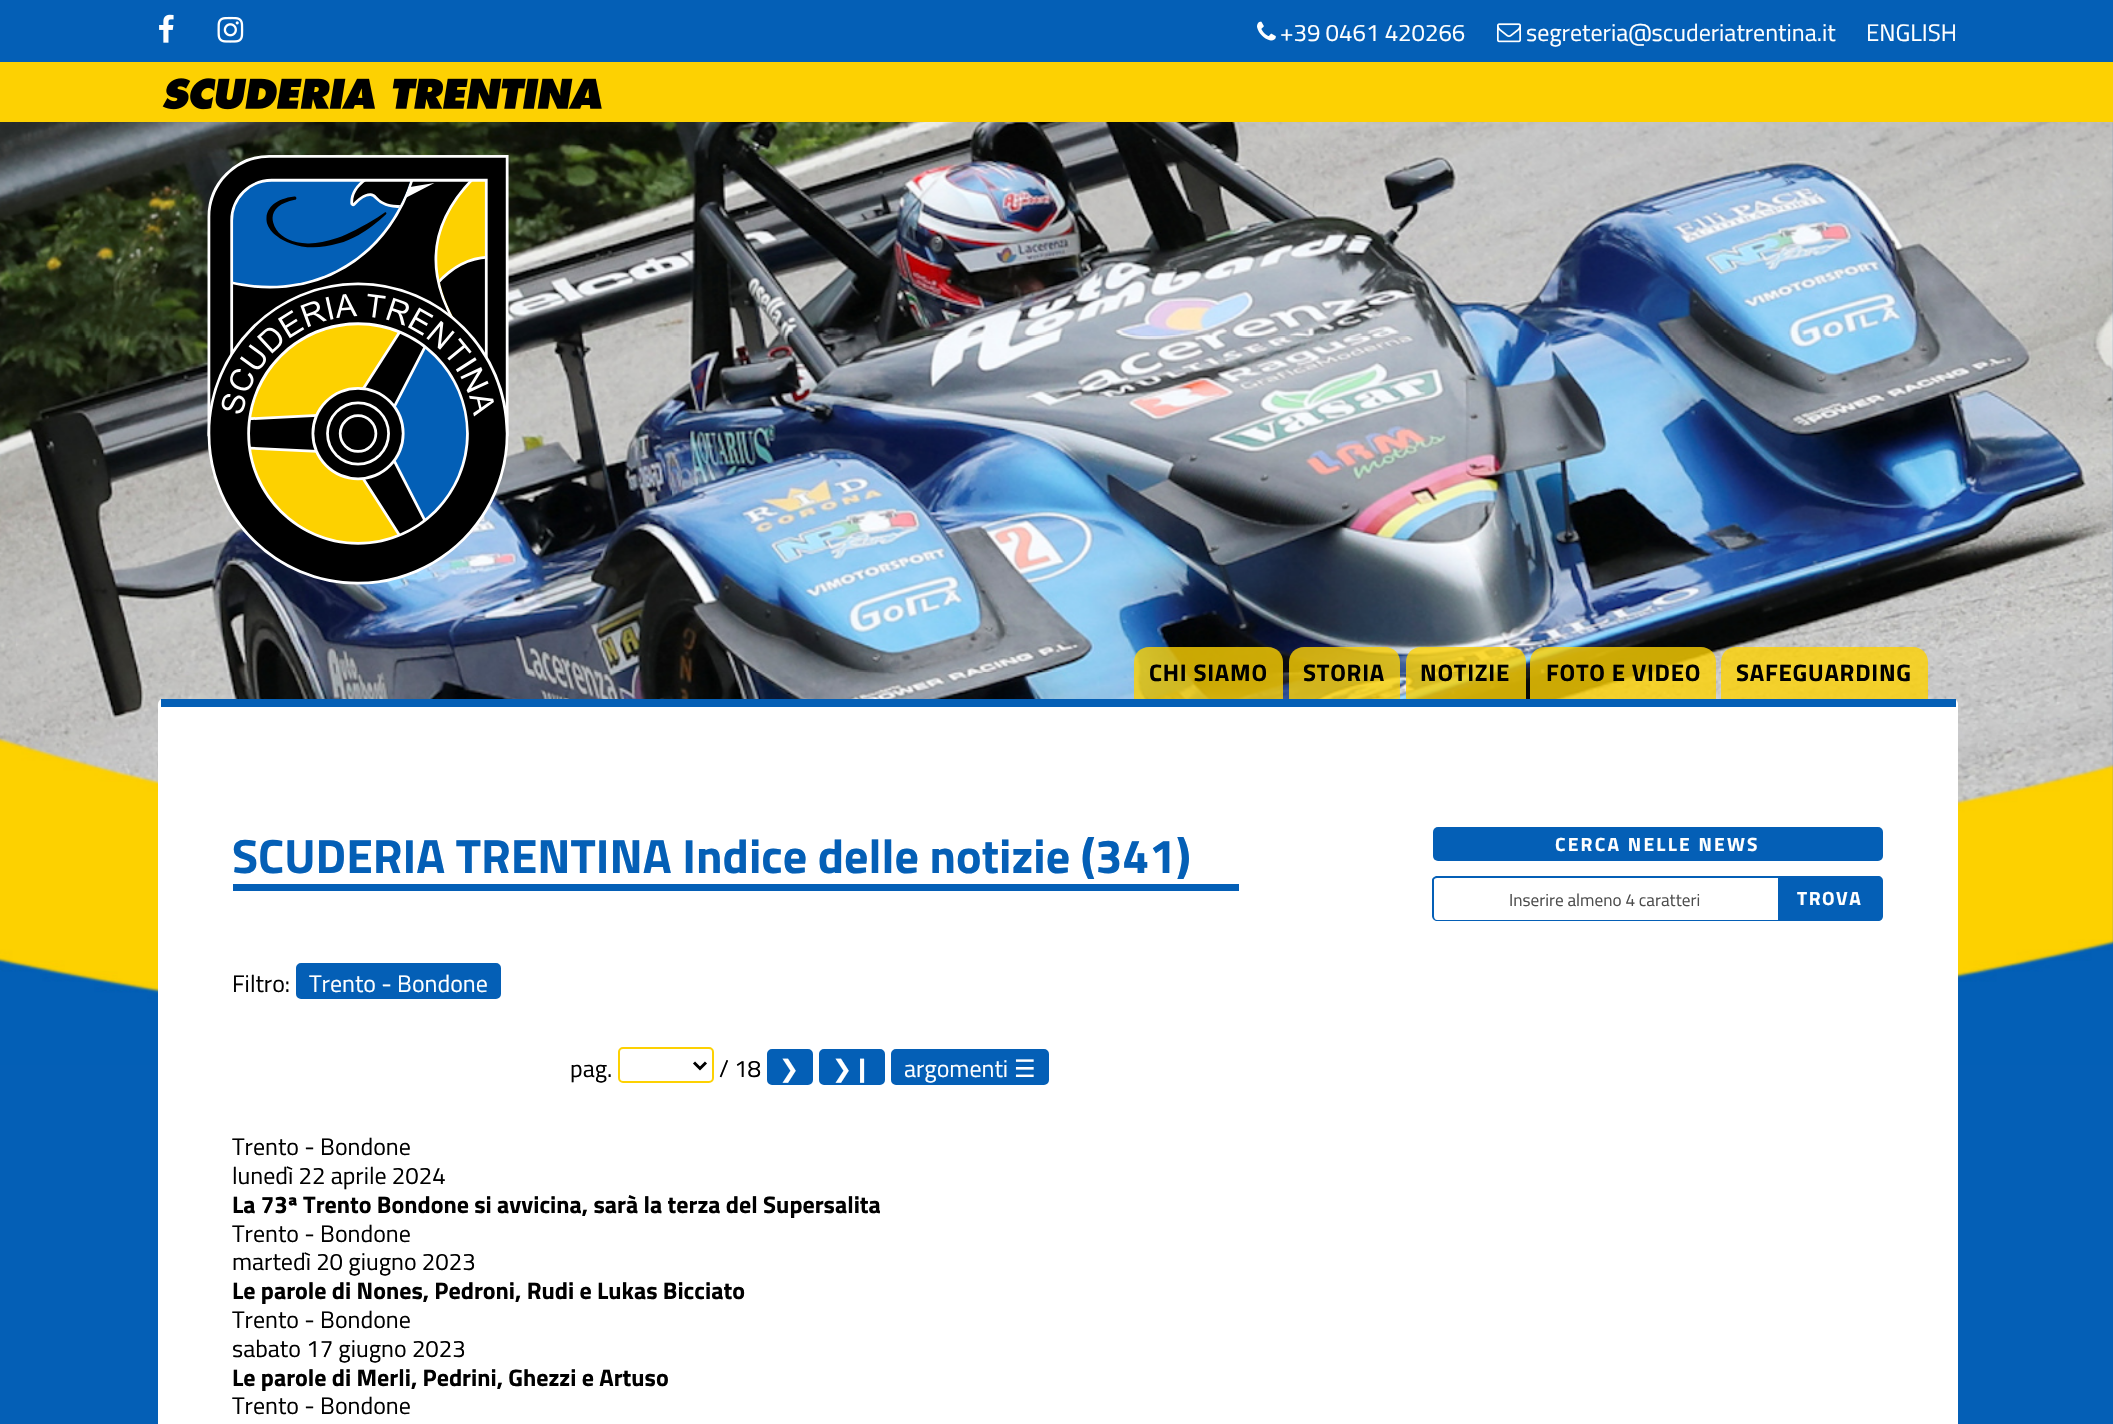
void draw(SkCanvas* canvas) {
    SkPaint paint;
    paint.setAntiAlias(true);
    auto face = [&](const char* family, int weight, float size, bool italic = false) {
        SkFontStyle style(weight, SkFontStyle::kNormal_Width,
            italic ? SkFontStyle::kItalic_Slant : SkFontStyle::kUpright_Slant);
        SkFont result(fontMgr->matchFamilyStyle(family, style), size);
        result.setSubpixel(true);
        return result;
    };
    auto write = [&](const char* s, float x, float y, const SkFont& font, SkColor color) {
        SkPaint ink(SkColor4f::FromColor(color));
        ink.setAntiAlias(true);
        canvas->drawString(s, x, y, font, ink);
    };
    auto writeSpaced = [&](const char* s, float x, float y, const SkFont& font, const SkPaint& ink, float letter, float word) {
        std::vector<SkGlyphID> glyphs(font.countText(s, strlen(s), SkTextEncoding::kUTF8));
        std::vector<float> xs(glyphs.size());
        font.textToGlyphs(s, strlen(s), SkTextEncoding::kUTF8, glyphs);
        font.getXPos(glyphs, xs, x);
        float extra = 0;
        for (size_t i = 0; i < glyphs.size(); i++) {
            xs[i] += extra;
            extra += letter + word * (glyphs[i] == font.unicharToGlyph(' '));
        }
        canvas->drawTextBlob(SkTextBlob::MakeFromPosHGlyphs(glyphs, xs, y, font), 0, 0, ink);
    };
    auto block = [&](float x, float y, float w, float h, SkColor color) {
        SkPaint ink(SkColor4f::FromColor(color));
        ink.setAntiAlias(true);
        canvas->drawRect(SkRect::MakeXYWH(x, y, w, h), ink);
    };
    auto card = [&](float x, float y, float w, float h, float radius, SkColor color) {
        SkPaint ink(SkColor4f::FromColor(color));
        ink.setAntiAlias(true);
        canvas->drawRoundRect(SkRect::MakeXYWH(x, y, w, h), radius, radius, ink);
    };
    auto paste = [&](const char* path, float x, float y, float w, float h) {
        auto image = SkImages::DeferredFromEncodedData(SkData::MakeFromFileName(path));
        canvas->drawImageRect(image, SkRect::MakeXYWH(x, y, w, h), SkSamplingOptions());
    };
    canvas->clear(SkColorSetRGB(4, 95, 182));
    paste("pic1.png", 0, 122, 2113, 943);
    paste("pic2.png", 159, 14, 15, 29);
    paste("pic3.png", 217, 16, 27, 27);
    paste("pic4.png", 1257, 21, 19, 20);
    auto kFont1 = face("Titillium Web", 400, 24);
    write("+39 0461 420266", 1280, 41, kFont1, SK_ColorWHITE);
    paste("pic5.png", 1497, 23, 24, 20);
    write("segreteria@scuderiatrentina.it", 1526, 41, kFont1, SK_ColorWHITE);
    write("ENGLISH", 1866, 41, kFont1, SK_ColorWHITE);
    block(0, 62, 2113, 60, SkColorSetRGB(253, 209, 2));
    paste("pic6.png", 162, 78, 440, 32);
    paste("pic7.png", 207, 155, 302, 430);
    paint.setColor(SkColorSetARGB(204, 253, 209, 2));
    canvas->drawPath(SkPathBuilder().moveTo(1149, 647).lineTo(1268, 647).cubicTo(1276.5f, 647, 1283, 653.5f, 1283, 662).lineTo(1283, 699).lineTo(1134, 699).lineTo(1134, 662).cubicTo(1134, 653.5f, 1140.5f, 647, 1149, 647).close().detach(), paint);
    auto kFont2 = face("Titillium Web", 700, 24);
    paint.setColor(SK_ColorBLACK);
    writeSpaced("CHI SIAMO", 1149, 681, kFont2, paint, 0.75f, 0);
    paint.setColor(SkColorSetARGB(204, 253, 209, 2));
    canvas->drawPath(SkPathBuilder().moveTo(1304, 647).lineTo(1385, 647).cubicTo(1393.5f, 647, 1400, 653.5f, 1400, 662).lineTo(1400, 699).lineTo(1289, 699).lineTo(1289, 662).cubicTo(1289, 653.5f, 1295.5f, 647, 1304, 647).close().detach(), paint);
    paint.setColor(SK_ColorBLACK);
    writeSpaced("STORIA", 1303, 681, kFont2, paint, 0.75f, 0);
    paint.setColor(SkColorSetARGB(204, 253, 209, 2));
    canvas->drawPath(SkPathBuilder().moveTo(1421, 647).lineTo(1511, 647).cubicTo(1519.5f, 647, 1526, 653.5f, 1526, 662).lineTo(1526, 699).lineTo(1406, 699).lineTo(1406, 662).cubicTo(1406, 653.5f, 1412.5f, 647, 1421, 647).close().detach(), paint);
    paint.setColor(SK_ColorBLACK);
    writeSpaced("NOTIZIE", 1420, 681, kFont2, paint, 0.75f, 0);
    paint.setColor(SkColorSetARGB(204, 253, 209, 2));
    canvas->drawPath(SkPathBuilder().moveTo(1545, 647).lineTo(1701, 647).cubicTo(1709.5f, 647, 1716, 653.5f, 1716, 662).lineTo(1716, 699).lineTo(1530, 699).lineTo(1530, 662).cubicTo(1530, 653.5f, 1536.5f, 647, 1545, 647).close().detach(), paint);
    paint.setColor(SK_ColorBLACK);
    writeSpaced("FOTO E VIDEO", 1546, 681, kFont2, paint, 0.75f, 0);
    paint.setColor(SkColorSetARGB(204, 253, 209, 2));
    canvas->drawPath(SkPathBuilder().moveTo(1736, 647).lineTo(1913, 647).cubicTo(1921.5f, 647, 1928, 653.5f, 1928, 662).lineTo(1928, 699).lineTo(1721, 699).lineTo(1721, 662).cubicTo(1721, 653.5f, 1727.5f, 647, 1736, 647).close().detach(), paint);
    paint.setColor(SK_ColorBLACK);
    writeSpaced("SAFEGUARDING", 1736, 681, kFont2, paint, 0.75f, 0);
    card(158, 699, 1800, 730, 5, SK_ColorWHITE);
    block(161, 699, 1795, 8, SkColorSetRGB(4, 95, 182));
    auto kFont3 = face("Titillium Web", 700, 48);
    write("SCUDERIA TRENTINA Indice delle notizie (341)", 232, 873, kFont3, SkColorSetRGB(4, 95, 182));
    block(233, 884, 1006, 7, SkColorSetRGB(4, 95, 182));
    write("Filtro:", 232, 992, kFont1, SK_ColorBLACK);
    paint.setColor(SkColorSetRGB(4, 95, 182));
    canvas->drawRoundRect(SkRect::MakeXYWH(297, 964, 203, 34), 4, 4, paint);
    paint.setStyle(SkPaint::kStroke_Style);
    paint.setStrokeWidth(2);
    canvas->drawRoundRect(SkRect::MakeXYWH(297, 964, 203, 34), 4, 4, paint);
    write("Trento - Bondone", 309, 992, kFont1, SK_ColorWHITE);
    write("pag.", 570, 1077, kFont1, SK_ColorBLACK);
    paint.setColor(SkColorSetRGB(253, 209, 2));
    canvas->drawRoundRect(SkRect::MakeXYWH(619, 1048, 94, 34), 4, 4, paint);
    paint.setStrokeWidth(3);
    paint.setColor(SK_ColorBLACK);
    canvas->drawPath(SkPathBuilder().moveTo(694, 1062.5f).lineTo(700, 1068.5f).lineTo(706, 1062.5f).detach(), paint);
    write("/ 18", 719, 1077, kFont1, SK_ColorBLACK);
    paint.setStyle(SkPaint::kFill_Style);
    paint.setColor(SkColorSetRGB(4, 95, 182));
    canvas->drawRoundRect(SkRect::MakeXYWH(768, 1050, 44, 34), 4, 4, paint);
    paint.setStyle(SkPaint::kStroke_Style);
    paint.setStrokeWidth(2);
    canvas->drawRoundRect(SkRect::MakeXYWH(768, 1050, 44, 34), 4, 4, paint);
    auto kFont4 = face("DejaVu Sans", 400, 24);
    write("❯", 779, 1077, kFont4, SK_ColorWHITE);
    paint.setStyle(SkPaint::kFill_Style);
    canvas->drawRoundRect(SkRect::MakeXYWH(820, 1050, 64, 34), 4, 4, paint);
    paint.setStyle(SkPaint::kStroke_Style);
    canvas->drawRoundRect(SkRect::MakeXYWH(820, 1050, 64, 34), 4, 4, paint);
    write("❯❙", 832, 1077, kFont4, SK_ColorWHITE);
    paint.setStyle(SkPaint::kFill_Style);
    canvas->drawRoundRect(SkRect::MakeXYWH(892, 1050, 156, 34), 4, 4, paint);
    paint.setStyle(SkPaint::kStroke_Style);
    canvas->drawRoundRect(SkRect::MakeXYWH(892, 1050, 156, 34), 4, 4, paint);
    write("argomenti", 904, 1077, kFont1, SK_ColorWHITE);
    write("☰", 1014, 1077, kFont4, SK_ColorWHITE);
    write("Trento - Bondone", 232, 1155, kFont1, SK_ColorBLACK);
    write("lunedì 22 aprile 2024", 232, 1184, kFont1, SK_ColorBLACK);
    write("La 73ª Trento Bondone si avvicina, sarà la terza del Supersalita", 232, 1213, kFont2, SK_ColorBLACK);
    write("Trento - Bondone", 232, 1242, kFont1, SK_ColorBLACK);
    write("martedì 20 giugno 2023", 232, 1270, kFont1, SK_ColorBLACK);
    write("Le parole di Nones, Pedroni, Rudi e Lukas Bicciato", 232, 1299, kFont2, SK_ColorBLACK);
    write("Trento - Bondone", 232, 1328, kFont1, SK_ColorBLACK);
    write("sabato 17 giugno 2023", 232, 1357, kFont1, SK_ColorBLACK);
    write("Le parole di Merli, Pedrini, Ghezzi e Artuso", 232, 1386, kFont2, SK_ColorBLACK);
    write("Trento - Bondone", 232, 1414, kFont1, SK_ColorBLACK);
    card(1433, 827, 450, 34, 5, SkColorSetRGB(4, 95, 182));
    auto kFont5 = face("Titillium Web", 700, 19.25f);
    paint.setStyle(SkPaint::kFill_Style);
    paint.setColor(SK_ColorWHITE);
    writeSpaced("CERCA NELLE NEWS", 1555, 851, kFont5, paint, 2.25f, 0);
    paint.setColor(SkColorSetRGB(4, 95, 182));
    canvas->drawPath(SkPathBuilder(SkPathFillType::kEvenOdd).moveTo(1437, 876).lineTo(1778, 876).lineTo(1778, 921).lineTo(1437, 921).cubicTo(1435, 921, 1432, 919, 1432, 916).lineTo(1432, 880).cubicTo(1432, 878, 1435, 876, 1437, 876).close().moveTo(1437, 878).lineTo(1778, 878).lineTo(1778, 920).lineTo(1437, 920).cubicTo(1435, 920, 1434, 918, 1434, 916).lineTo(1434, 880).cubicTo(1434, 879, 1435, 878, 1437, 878).close().detach(), paint);
    auto kFont6 = face("Titillium Web", 400, 17.25f);
    write("Inserire almeno 4 caratteri", 1509, 906, kFont6, SkColorSetRGB(77, 77, 77));
    canvas->drawPath(SkPathBuilder().moveTo(1778, 876).lineTo(1878, 876).cubicTo(1881, 876, 1883, 878, 1883, 881).lineTo(1883, 916).cubicTo(1883, 919, 1881, 921, 1878, 921).lineTo(1778, 921).close().detach(), paint);
    paint.setColor(SK_ColorWHITE);
    writeSpaced("TROVA", 1797, 905, kFont5, paint, 1.5f, 0);
}
